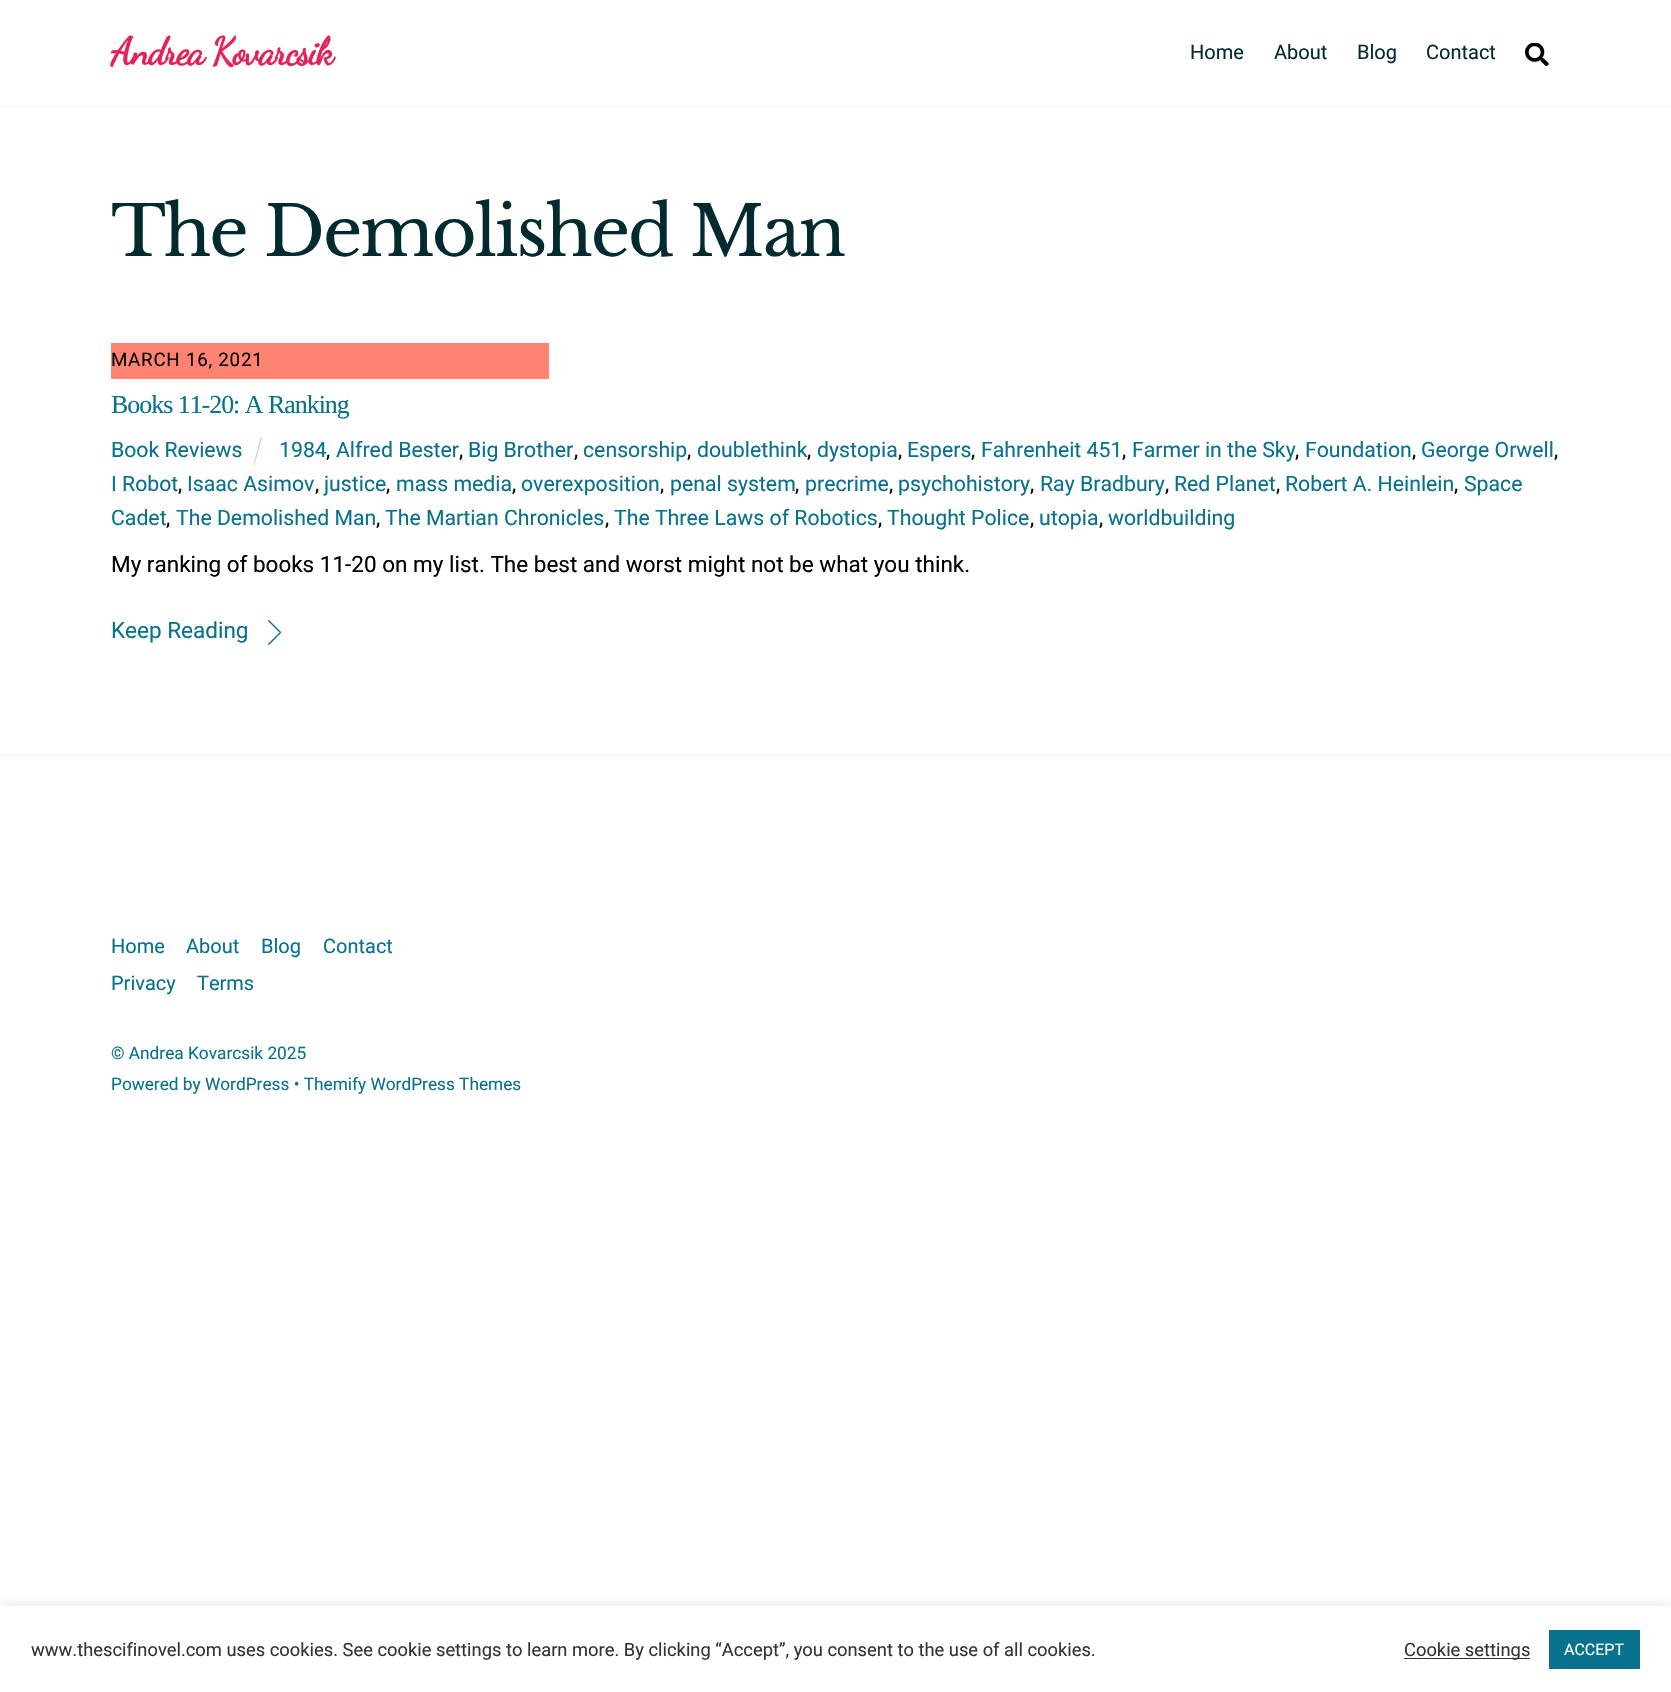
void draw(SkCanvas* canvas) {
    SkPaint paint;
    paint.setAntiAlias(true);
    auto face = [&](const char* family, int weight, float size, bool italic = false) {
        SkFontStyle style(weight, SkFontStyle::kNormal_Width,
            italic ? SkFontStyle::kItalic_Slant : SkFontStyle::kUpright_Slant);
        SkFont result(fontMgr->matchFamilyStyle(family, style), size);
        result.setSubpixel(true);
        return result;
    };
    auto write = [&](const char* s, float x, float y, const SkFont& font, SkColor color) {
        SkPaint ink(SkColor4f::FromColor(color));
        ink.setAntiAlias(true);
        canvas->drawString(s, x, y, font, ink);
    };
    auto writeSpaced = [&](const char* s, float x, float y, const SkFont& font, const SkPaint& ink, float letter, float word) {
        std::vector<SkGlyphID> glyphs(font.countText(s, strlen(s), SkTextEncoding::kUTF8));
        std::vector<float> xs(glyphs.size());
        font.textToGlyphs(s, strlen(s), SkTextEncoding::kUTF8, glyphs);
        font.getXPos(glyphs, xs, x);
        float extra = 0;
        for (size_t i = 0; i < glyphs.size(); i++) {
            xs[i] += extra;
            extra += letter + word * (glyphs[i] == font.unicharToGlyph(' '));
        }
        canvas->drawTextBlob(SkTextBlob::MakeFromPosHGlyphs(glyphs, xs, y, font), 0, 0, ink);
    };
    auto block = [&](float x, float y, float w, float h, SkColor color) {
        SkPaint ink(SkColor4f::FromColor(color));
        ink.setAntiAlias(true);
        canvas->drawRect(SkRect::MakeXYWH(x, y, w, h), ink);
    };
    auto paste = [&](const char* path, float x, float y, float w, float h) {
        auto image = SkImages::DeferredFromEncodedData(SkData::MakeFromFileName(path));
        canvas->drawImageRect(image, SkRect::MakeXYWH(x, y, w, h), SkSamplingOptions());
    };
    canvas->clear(SK_ColorWHITE);
    block(0, 106, 1671, 1, SkColorSetRGB(242, 242, 242));
    auto kFont1 = face("Dancing Script", 700, 38.25f);
    paint.setColor(SkColorSetRGB(228, 34, 86));
    writeSpaced("Andrea Kovarcsik", 111, 64, kFont1, paint, -1.5f, 0);
    auto kFont2 = face("Roboto", 400, 20);
    write("Home", 1190, 59, kFont2, SkColorSetRGB(3, 43, 47));
    write("About", 1274, 59, kFont2, SkColorSetRGB(3, 43, 47));
    write("Blog", 1357, 59, kFont2, SkColorSetRGB(3, 43, 47));
    write("Contact", 1426, 59, kFont2, SkColorSetRGB(3, 43, 47));
    paste("pic1.png", 1525, 43, 24, 23);
    auto kFont3 = face("Libre Baskerville", 400, 68.75f);
    paint.setColor(SkColorSetRGB(3, 43, 47));
    writeSpaced("The Demolished Man", 111, 256, kFont3, paint, -2.1f, 0);
    block(111, 343, 438, 36, SkColorSetRGB(255, 131, 112));
    auto kFont4 = face("Roboto", 400, 18.75f);
    paint.setColor(SK_ColorBLACK);
    writeSpaced("MARCH 16, 2021", 111, 366, kFont4, paint, 0.75f, 0);
    auto kFont5 = face("Liberation Serif", 400, 25.9f);
    paint.setColor(SkColorSetRGB(8, 113, 140));
    writeSpaced("Books 11-20: A Ranking", 111, 413, kFont5, paint, -1, 0);
    paint.setColor(SkColorSetRGB(211, 211, 211));
    canvas->drawPath(SkPathBuilder().moveTo(260.5f, 437.5f).lineTo(262, 437.5f).lineTo(254.5f, 465).lineTo(253.5f, 465).close().detach(), paint);
    auto kFont6 = face("Roboto", 400, 21.25f);
    write("1984", 279, 457, kFont6, SkColorSetRGB(8, 113, 140));
    write(",", 326, 457, kFont6, SK_ColorBLACK);
    write("Alfred Bester", 336, 457, kFont6, SkColorSetRGB(8, 113, 140));
    write(",", 459, 457, kFont6, SK_ColorBLACK);
    write("Big Brother", 468, 457, kFont6, SkColorSetRGB(8, 113, 140));
    write(",", 574, 457, kFont6, SK_ColorBLACK);
    write("censorship", 583, 457, kFont6, SkColorSetRGB(8, 113, 140));
    write(",", 687, 457, kFont6, SK_ColorBLACK);
    write("doublethink", 697, 457, kFont6, SkColorSetRGB(8, 113, 140));
    write(",", 807, 457, kFont6, SK_ColorBLACK);
    write("dystopia", 817, 457, kFont6, SkColorSetRGB(8, 113, 140));
    write(",", 898, 457, kFont6, SK_ColorBLACK);
    write("Espers", 907, 457, kFont6, SkColorSetRGB(8, 113, 140));
    write(",", 971, 457, kFont6, SK_ColorBLACK);
    write("Fahrenheit 451", 981, 457, kFont6, SkColorSetRGB(8, 113, 140));
    write(",", 1122, 457, kFont6, SK_ColorBLACK);
    write("Farmer in the Sky", 1132, 457, kFont6, SkColorSetRGB(8, 113, 140));
    write(",", 1295, 457, kFont6, SK_ColorBLACK);
    write("Foundation", 1305, 457, kFont6, SkColorSetRGB(8, 113, 140));
    write(",", 1412, 457, kFont6, SK_ColorBLACK);
    write("George Orwell", 1421, 457, kFont6, SkColorSetRGB(8, 113, 140));
    write(",", 1554, 457, kFont6, SK_ColorBLACK);
    write("I Robot", 111, 491, kFont6, SkColorSetRGB(8, 113, 140));
    write(",", 178, 491, kFont6, SK_ColorBLACK);
    write("Isaac Asimov", 187, 491, kFont6, SkColorSetRGB(8, 113, 140));
    write(",", 315, 491, kFont6, SK_ColorBLACK);
    write("justice", 324, 491, kFont6, SkColorSetRGB(8, 113, 140));
    write(",", 386, 491, kFont6, SK_ColorBLACK);
    write("mass media", 396, 491, kFont6, SkColorSetRGB(8, 113, 140));
    write(",", 512, 491, kFont6, SK_ColorBLACK);
    write("overexposition", 521, 491, kFont6, SkColorSetRGB(8, 113, 140));
    write(",", 660, 491, kFont6, SK_ColorBLACK);
    write("penal system", 670, 491, kFont6, SkColorSetRGB(8, 113, 140));
    write(",", 795, 491, kFont6, SK_ColorBLACK);
    write("precrime", 805, 491, kFont6, SkColorSetRGB(8, 113, 140));
    write(",", 889, 491, kFont6, SK_ColorBLACK);
    write("psychohistory", 898, 491, kFont6, SkColorSetRGB(8, 113, 140));
    write(",", 1030, 491, kFont6, SK_ColorBLACK);
    write("Ray Bradbury", 1040, 491, kFont6, SkColorSetRGB(8, 113, 140));
    write(",", 1165, 491, kFont6, SK_ColorBLACK);
    write("Red Planet", 1174, 491, kFont6, SkColorSetRGB(8, 113, 140));
    write(",", 1276, 491, kFont6, SK_ColorBLACK);
    write("Robert A. Heinlein", 1285, 491, kFont6, SkColorSetRGB(8, 113, 140));
    write(",", 1454, 491, kFont6, SK_ColorBLACK);
    write("Space", 1464, 491, kFont6, SkColorSetRGB(8, 113, 140));
    write("Cadet", 111, 525, kFont6, SkColorSetRGB(8, 113, 140));
    write(",", 166, 525, kFont6, SK_ColorBLACK);
    write("The Demolished Man", 176, 525, kFont6, SkColorSetRGB(8, 113, 140));
    write(",", 376, 525, kFont6, SK_ColorBLACK);
    write("The Martian Chronicles", 385, 525, kFont6, SkColorSetRGB(8, 113, 140));
    write(",", 605, 525, kFont6, SK_ColorBLACK);
    write("The Three Laws of Robotics", 614, 525, kFont6, SkColorSetRGB(8, 113, 140));
    write(",", 878, 525, kFont6, SK_ColorBLACK);
    write("Thought Police", 887, 525, kFont6, SkColorSetRGB(8, 113, 140));
    write(",", 1030, 525, kFont6, SK_ColorBLACK);
    write("utopia", 1039, 525, kFont6, SkColorSetRGB(8, 113, 140));
    write(",", 1099, 525, kFont6, SK_ColorBLACK);
    write("worldbuilding", 1108, 525, kFont6, SkColorSetRGB(8, 113, 140));
    write("Book Reviews", 111, 457, kFont6, SkColorSetRGB(8, 113, 140));
    auto kFont7 = face("Roboto", 400, 22.5f);
    write("My ranking of books 11-20 on my list. The best and worst might not be what you think.", 111, 572, kFont7, SK_ColorBLACK);
    write("Keep Reading", 111, 638, kFont7, SkColorSetRGB(8, 113, 140));
    paint.setColor(SkColorSetRGB(8, 113, 140));
    canvas->drawPath(SkPathBuilder().moveTo(268.5f, 619.5f).lineTo(281.5f, 632.5f).lineTo(279.5f, 632.5f).lineTo(268.5f, 621.5f).close().detach(), paint);
    canvas->drawPath(SkPathBuilder().moveTo(281.5f, 632.5f).lineTo(268.5f, 645.5f).lineTo(268.5f, 643.5f).lineTo(279.5f, 632.5f).close().detach(), paint);
    block(0, 755, 1671, 1, SkColorSetRGB(242, 242, 242));
    write("Home", 111, 953, kFont2, SkColorSetRGB(8, 113, 140));
    write("About", 186, 953, kFont2, SkColorSetRGB(8, 113, 140));
    write("Blog", 261, 953, kFont2, SkColorSetRGB(8, 113, 140));
    write("Contact", 323, 953, kFont2, SkColorSetRGB(8, 113, 140));
    write("Privacy", 111, 990, kFont2, SkColorSetRGB(8, 113, 140));
    write("Terms", 197, 990, kFont2, SkColorSetRGB(8, 113, 140));
    auto kFont8 = face("Roboto", 400, 17.25f);
    write("© Andrea Kovarcsik 2025", 111, 1059, kFont8, SkColorSetRGB(8, 113, 140));
    write("Powered by WordPress • Themify WordPress Themes", 111, 1090, kFont8, SkColorSetRGB(8, 113, 140));
    paint.setColor(SkColorSetARGB(77, 172, 171, 171));
    paint.setMaskFilter(SkMaskFilter::MakeBlur(kNormal_SkBlurStyle, 6));
    canvas->drawRect(SkRect::MakeXYWH(0, 1605, 1671, 86), paint);
    paint.setMaskFilter(nullptr);
    block(0, 1606, 1671, 86, SK_ColorWHITE);
    auto kFont9 = face("Roboto", 400, 18.33f);
    write("www.thescifinovel.com uses cookies. See cookie settings to learn more. By clicking “Accept”, you consent to the use of all cookies.", 31, 1656, kFont9, SkColorSetRGB(51, 51, 51));
    block(1404, 1658, 126, 1, SkColorSetRGB(51, 51, 51));
    write("Cookie settings", 1404, 1656, kFont9, SkColorSetRGB(51, 51, 51));
    block(1549, 1630, 91, 39, SkColorSetRGB(8, 113, 140));
    auto kFont10 = face("Roboto", 400, 16);
    write("ACCEPT", 1564, 1655, kFont10, SK_ColorWHITE);
}
